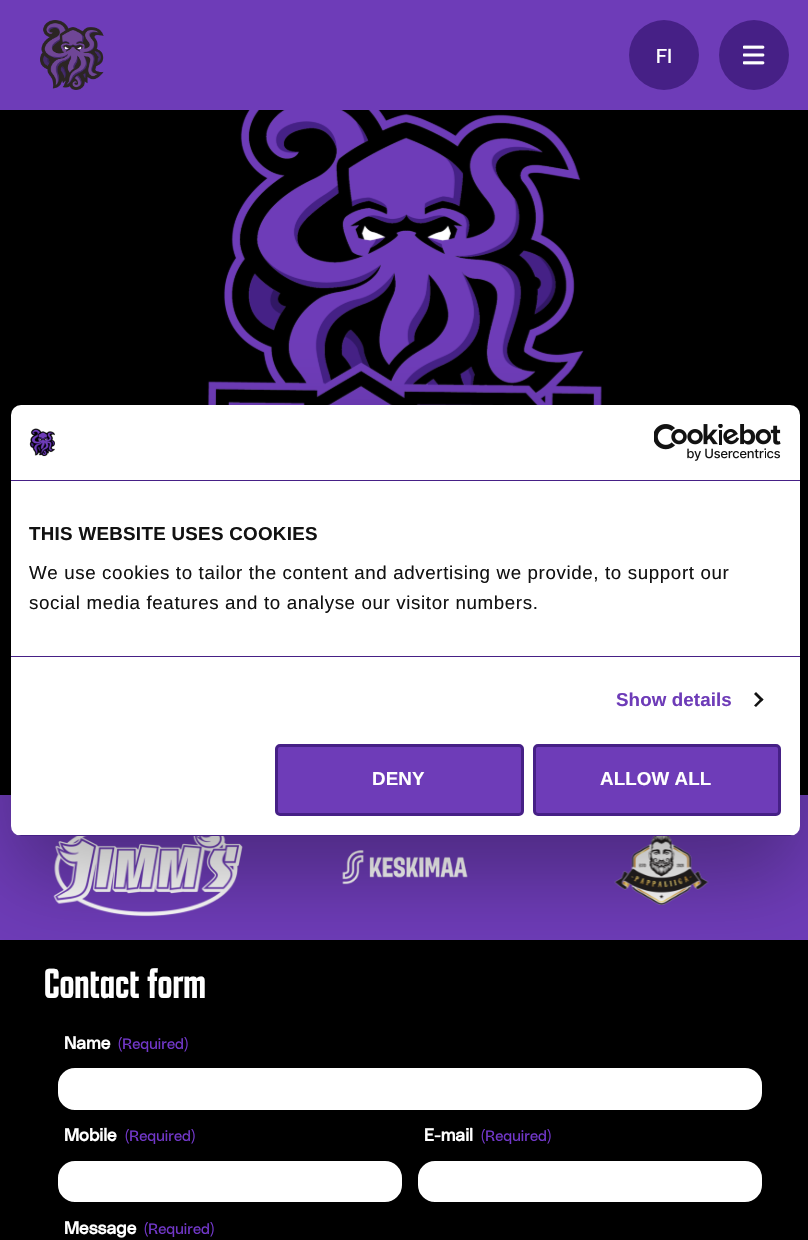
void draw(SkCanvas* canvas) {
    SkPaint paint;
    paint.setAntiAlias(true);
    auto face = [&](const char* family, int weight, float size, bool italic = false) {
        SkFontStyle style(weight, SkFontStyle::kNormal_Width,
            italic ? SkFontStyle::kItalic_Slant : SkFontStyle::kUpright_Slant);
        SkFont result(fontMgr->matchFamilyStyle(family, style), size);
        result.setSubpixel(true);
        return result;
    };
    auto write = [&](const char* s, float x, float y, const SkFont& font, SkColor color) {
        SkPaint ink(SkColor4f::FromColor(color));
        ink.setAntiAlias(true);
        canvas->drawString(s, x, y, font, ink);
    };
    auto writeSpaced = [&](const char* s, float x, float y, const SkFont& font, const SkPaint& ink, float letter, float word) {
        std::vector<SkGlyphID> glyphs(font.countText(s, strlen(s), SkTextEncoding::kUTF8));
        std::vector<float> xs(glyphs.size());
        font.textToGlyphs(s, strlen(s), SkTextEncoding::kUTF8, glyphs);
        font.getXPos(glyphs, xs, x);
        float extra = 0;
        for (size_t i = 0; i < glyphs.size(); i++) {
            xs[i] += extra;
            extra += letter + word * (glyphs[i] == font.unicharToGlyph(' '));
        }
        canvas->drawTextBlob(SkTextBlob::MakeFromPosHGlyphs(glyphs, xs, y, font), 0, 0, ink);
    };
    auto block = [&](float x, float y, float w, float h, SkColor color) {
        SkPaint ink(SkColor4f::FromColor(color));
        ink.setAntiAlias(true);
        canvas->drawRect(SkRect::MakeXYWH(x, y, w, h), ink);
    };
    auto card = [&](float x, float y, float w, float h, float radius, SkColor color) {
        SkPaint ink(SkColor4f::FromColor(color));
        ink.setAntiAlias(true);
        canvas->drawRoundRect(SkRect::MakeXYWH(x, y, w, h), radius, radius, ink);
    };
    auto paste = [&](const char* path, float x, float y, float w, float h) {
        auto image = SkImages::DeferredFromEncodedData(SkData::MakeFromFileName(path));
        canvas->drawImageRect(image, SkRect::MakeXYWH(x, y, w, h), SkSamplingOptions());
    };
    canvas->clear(SK_ColorBLACK);
    block(0, 0, 808, 110, SkColorSetRGB(110, 60, 184));
    paste("pic1.png", 40, 20, 64, 70);
    paint.setColor(SkColorSetRGB(70, 32, 134));
    canvas->drawCircle(664, 55, 35, paint);
    auto kFont1 = face("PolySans", 400, 20);
    write("FI", 656, 63, kFont1, SK_ColorWHITE);
    canvas->drawCircle(754, 55, 35, paint);
    paste("pic2.png", 743, 45, 22, 20);
    paste("pic5.png", 207, 110, 395, 295);
    block(0, 795, 808, 145, SkColorSetRGB(110, 60, 184));
    paste("pic6.png", 53, 836, 190, 81);
    paste("pic7.png", 342, 850, 126, 35);
    paste("pic8.png", 614, 836, 95, 69);
    paint.setColor(SkColorSetARGB(77, 0, 0, 0));
    paint.setMaskFilter(SkMaskFilter::MakeBlur(kNormal_SkBlurStyle, 42.5f));
    canvas->drawRoundRect(SkRect::MakeXYWH(11, 445, 789, 431), 10, 10, paint);
    paint.setMaskFilter(nullptr);
    card(11, 405, 789, 431, 10, SK_ColorWHITE);
    block(11, 480, 789, 1, SkColorSetRGB(70, 32, 134));
    paste("pic3.png", 29, 428, 26, 29);
    paste("pic4.png", 654, 424, 127, 37);
    block(11, 656, 789, 1, SkColorSetRGB(70, 32, 134));
    auto kFont2 = face("Liberation Sans", 700, 18.75f);
    paint.setColor(SkColorSetRGB(18, 18, 18));
    writeSpaced("THIS WEBSITE USES COOKIES", 29, 540, kFont2, paint, 0.3f, 0);
    auto kFont3 = face("Liberation Sans", 400, 18.75f);
    writeSpaced("We use cookies to tailor the content and advertising we provide, to support our", 29, 579, kFont3, paint, 0.62f, 0);
    writeSpaced("social media features and to analyse our visitor numbers.", 29, 609, kFont3, paint, 0.62f, 0);
    paint.setColor(SkColorSetRGB(110, 60, 184));
    writeSpaced("Show details", 616, 706, kFont2, paint, 0.1f, 0);
    paint.setColor(SkColorSetRGB(18, 18, 18));
    canvas->drawPath(SkPathBuilder().moveTo(756, 692).lineTo(763.5f, 699.5f).lineTo(761.5f, 701.5f).lineTo(754, 694).close().detach(), paint);
    canvas->drawPath(SkPathBuilder().moveTo(761.5f, 698).lineTo(763.5f, 699.5f).lineTo(756, 707).lineTo(754, 705.5f).close().detach(), paint);
    canvas->save();
    canvas->clipPath(SkPathBuilder().moveTo(21, 405).lineTo(790, 405).cubicTo(795.5f, 405, 800, 409.5f, 800, 415).lineTo(800, 826).cubicTo(800, 831.5f, 795.5f, 836, 790, 836).lineTo(21, 836).cubicTo(15.5f, 836, 11, 831.5f, 11, 826).lineTo(11, 415).cubicTo(11, 409.5f, 15.5f, 405, 21, 405).close().detach(), true);
    block(11, 835, 789, 1, SkColorSetRGB(70, 32, 134));
    canvas->restore();
    paint.setColor(SkColorSetRGB(110, 60, 184));
    canvas->drawRoundRect(SkRect::MakeXYWH(276.5f, 745.5f, 246, 69), 3.5f, 3.5f, paint);
    paint.setStyle(SkPaint::kStroke_Style);
    paint.setStrokeWidth(3);
    paint.setColor(SkColorSetRGB(70, 32, 134));
    canvas->drawRoundRect(SkRect::MakeXYWH(276.5f, 745.5f, 246, 69), 3.5f, 3.5f, paint);
    paint.setStyle(SkPaint::kFill_Style);
    paint.setColor(SK_ColorWHITE);
    writeSpaced("DENY", 372, 785, kFont2, paint, 0.1f, 0);
    paint.setColor(SkColorSetRGB(110, 60, 184));
    canvas->drawRoundRect(SkRect::MakeXYWH(534.5f, 745.5f, 245, 69), 3.5f, 3.5f, paint);
    paint.setStyle(SkPaint::kStroke_Style);
    paint.setColor(SkColorSetRGB(70, 32, 134));
    canvas->drawRoundRect(SkRect::MakeXYWH(534.5f, 745.5f, 245, 69), 3.5f, 3.5f, paint);
    paint.setStyle(SkPaint::kFill_Style);
    paint.setColor(SK_ColorWHITE);
    writeSpaced("ALLOW ALL", 600, 785, kFont2, paint, 0.1f, 0);
    auto kFont4 = face("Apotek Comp", 500, 45);
    write("Contact form", 44, 998, kFont4, SK_ColorWHITE);
    auto kFont5 = face("PolySans", 700, 17.5f);
    write("Name", 64, 1049, kFont5, SK_ColorWHITE);
    auto kFont6 = face("PolySans", 400, 15);
    write("(Required)", 118, 1049, kFont6, SkColorSetRGB(113, 55, 200));
    canvas->drawRoundRect(SkRect::MakeXYWH(56.5f, 1066.5f, 707, 45), 18.5f, 18.5f, paint);
    paint.setStyle(SkPaint::kStroke_Style);
    paint.setColor(SK_ColorBLACK);
    canvas->drawRoundRect(SkRect::MakeXYWH(56.5f, 1066.5f, 707, 45), 18.5f, 18.5f, paint);
    write("Mobile", 64, 1141, kFont5, SK_ColorWHITE);
    write("(Required)", 125, 1141, kFont6, SkColorSetRGB(113, 55, 200));
    paint.setStyle(SkPaint::kFill_Style);
    paint.setColor(SK_ColorWHITE);
    canvas->drawRoundRect(SkRect::MakeXYWH(56.5f, 1159.5f, 347, 44), 18.5f, 18.5f, paint);
    paint.setStyle(SkPaint::kStroke_Style);
    paint.setColor(SK_ColorBLACK);
    canvas->drawRoundRect(SkRect::MakeXYWH(56.5f, 1159.5f, 347, 44), 18.5f, 18.5f, paint);
    write("E-mail", 424, 1141, kFont5, SK_ColorWHITE);
    write("(Required)", 481, 1141, kFont6, SkColorSetRGB(113, 55, 200));
    paint.setStyle(SkPaint::kFill_Style);
    paint.setColor(SK_ColorWHITE);
    canvas->drawRoundRect(SkRect::MakeXYWH(416.5f, 1159.5f, 347, 44), 18.5f, 18.5f, paint);
    paint.setStyle(SkPaint::kStroke_Style);
    paint.setColor(SK_ColorBLACK);
    canvas->drawRoundRect(SkRect::MakeXYWH(416.5f, 1159.5f, 347, 44), 18.5f, 18.5f, paint);
    write("Message", 64, 1234, kFont5, SK_ColorWHITE);
    write("(Required)", 144, 1234, kFont6, SkColorSetRGB(113, 55, 200));
}
